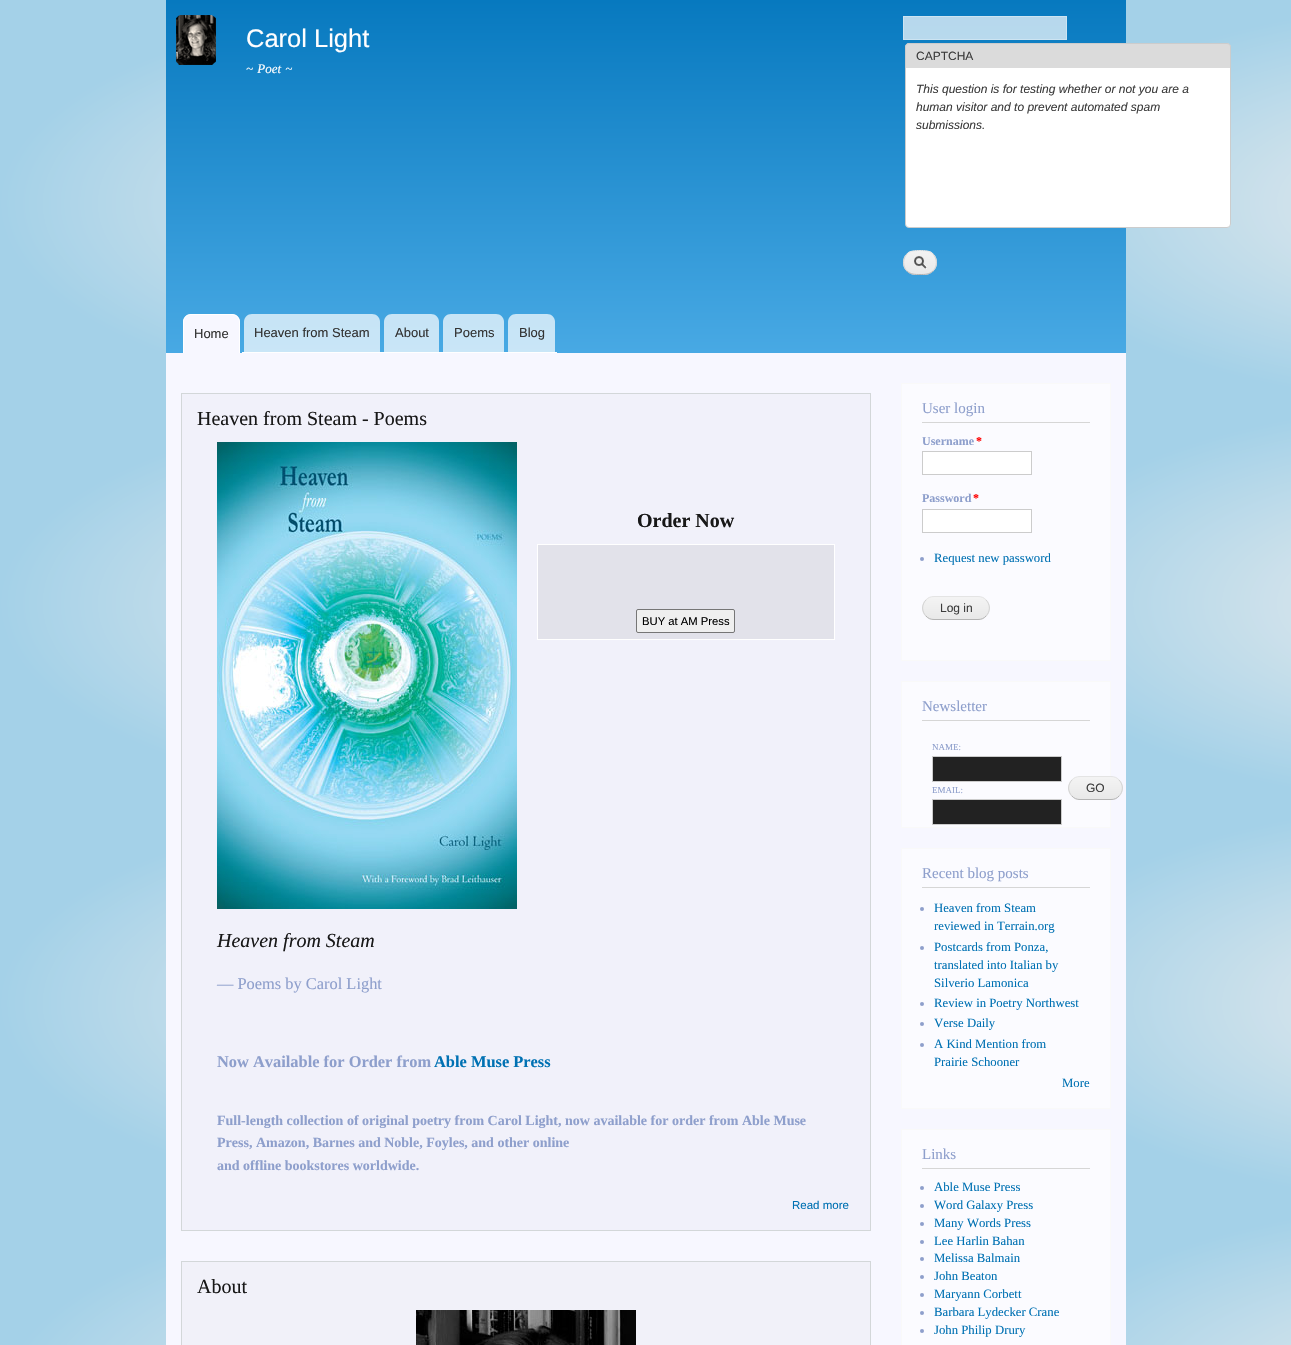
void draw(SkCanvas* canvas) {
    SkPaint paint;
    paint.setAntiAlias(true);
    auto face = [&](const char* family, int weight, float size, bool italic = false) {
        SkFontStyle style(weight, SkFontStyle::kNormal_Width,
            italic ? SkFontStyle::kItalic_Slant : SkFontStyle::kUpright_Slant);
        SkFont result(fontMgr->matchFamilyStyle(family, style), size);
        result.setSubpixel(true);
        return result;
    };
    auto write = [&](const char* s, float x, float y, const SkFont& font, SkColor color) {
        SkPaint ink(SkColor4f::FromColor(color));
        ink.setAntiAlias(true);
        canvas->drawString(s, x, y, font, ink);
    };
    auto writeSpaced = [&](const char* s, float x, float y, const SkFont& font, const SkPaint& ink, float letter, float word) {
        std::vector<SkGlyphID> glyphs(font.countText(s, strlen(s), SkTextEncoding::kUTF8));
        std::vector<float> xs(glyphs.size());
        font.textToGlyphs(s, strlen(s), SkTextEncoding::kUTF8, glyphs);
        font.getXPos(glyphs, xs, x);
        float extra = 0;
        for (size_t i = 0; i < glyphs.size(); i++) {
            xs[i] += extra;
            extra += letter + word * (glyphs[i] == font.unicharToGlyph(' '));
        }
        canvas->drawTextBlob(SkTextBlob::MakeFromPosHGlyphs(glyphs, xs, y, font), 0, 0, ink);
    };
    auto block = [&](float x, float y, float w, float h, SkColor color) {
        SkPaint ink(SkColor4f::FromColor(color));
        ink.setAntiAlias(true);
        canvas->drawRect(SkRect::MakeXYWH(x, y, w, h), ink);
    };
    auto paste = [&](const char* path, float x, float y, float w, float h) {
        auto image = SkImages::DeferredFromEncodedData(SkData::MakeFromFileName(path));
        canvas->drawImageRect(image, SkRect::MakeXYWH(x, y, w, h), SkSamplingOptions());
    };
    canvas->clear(SK_ColorWHITE);
    paste("pic1.png", 0, 0, 1291, 1345);
    block(166, 353, 960, 992, SkColorSetRGB(247, 247, 255));
    {
        const SkColor colors[] = {SkColorSetRGB(7, 121, 191), SkColorSetRGB(72, 169, 228)};
        const float stops[] = {0, 1};
        const SkPoint ends[] = {{646, 0}, {646, 353}};
        paint.setShader(SkGradientShader::MakeLinear(ends, colors, stops, 2, SkTileMode::kClamp));
        paint.setAlpha(255);
    }
    canvas->drawRect(SkRect::MakeXYWH(166, 0, 960, 353), paint);
    paste("pic2.png", 176, 15, 40, 50);
    auto kFont1 = face("Liberation Sans", 400, 25.5f);
    write("Carol Light", 246, 47, kFont1, SkColorSetRGB(255, 254, 255));
    auto kFont2 = face("Liberation Serif", 400, 13, true);
    paint.setShader(nullptr);
    paint.setColor(SkColorSetRGB(255, 254, 255));
    writeSpaced("~ Poet ~", 246, 73, kFont2, paint, 0, 1);
    paint.setColor(SkColorSetARGB(179, 255, 255, 255));
    canvas->drawRect(SkRect::MakeXYWH(903.5f, 16.5f, 163, 23), paint);
    paint.setStyle(SkPaint::kStroke_Style);
    paint.setStrokeWidth(1);
    paint.setColor(SkColorSetRGB(204, 228, 242));
    canvas->drawRect(SkRect::MakeXYWH(903.5f, 16.5f, 163, 23), paint);
    paint.setStyle(SkPaint::kFill_Style);
    paint.setColor(SK_ColorWHITE);
    canvas->drawRoundRect(SkRect::MakeXYWH(905.5f, 54.5f, 325, 173), 3.5f, 3.5f, paint);
    paint.setStyle(SkPaint::kStroke_Style);
    paint.setColor(SkColorSetRGB(204, 204, 204));
    canvas->drawRoundRect(SkRect::MakeXYWH(905.5f, 54.5f, 325, 173), 3.5f, 3.5f, paint);
    paint.setStyle(SkPaint::kFill_Style);
    paint.setColor(SkColorSetRGB(219, 219, 219));
    canvas->drawPath(SkPathBuilder().moveTo(909, 43).lineTo(1227, 43).cubicTo(1229, 43, 1231, 45, 1231, 47).lineTo(1231, 68).lineTo(905, 68).lineTo(905, 47).cubicTo(905, 45, 907, 43, 909, 43).close().detach(), paint);
    paint.setColor(SkColorSetRGB(204, 204, 204));
    canvas->drawPath(SkPathBuilder(SkPathFillType::kEvenOdd).moveTo(909, 43).lineTo(1227, 43).cubicTo(1229, 43, 1231, 45, 1231, 47).lineTo(1231, 68).lineTo(905, 68).lineTo(905, 47).cubicTo(905, 45, 907, 43, 909, 43).close().moveTo(909, 44).lineTo(1227, 44).cubicTo(1229, 44, 1230, 45, 1230, 47).lineTo(1230, 68).lineTo(906, 68).lineTo(906, 47).cubicTo(906, 45, 907, 44, 909, 44).close().detach(), paint);
    auto kFont3 = face("Liberation Sans", 400, 12);
    write("CAPTCHA", 916, 60, kFont3, SkColorSetRGB(60, 60, 60));
    auto kFont4 = face("Liberation Sans", 400, 12, true);
    write("This question is for testing whether or not you are a", 916, 93, kFont4, SkColorSetRGB(60, 60, 60));
    write("human visitor and to prevent automated spam", 916, 111, kFont4, SkColorSetRGB(60, 60, 60));
    write("submissions.", 916, 129, kFont4, SkColorSetRGB(60, 60, 60));
    paste("pic3.png", 903, 251, 34, 24);
    paint.setStyle(SkPaint::kStroke_Style);
    paint.setColor(SkColorSetRGB(228, 228, 228));
    canvas->drawPath(SkPathBuilder().moveTo(907, 254).cubicTo(910.5f, 250.5f, 915, 250.5f, 920, 250.5f).cubicTo(925, 250.5f, 929.5f, 250.5f, 933, 254).detach(), paint);
    paint.setColor(SkColorSetRGB(210, 210, 210));
    canvas->drawPath(SkPathBuilder().moveTo(933, 254).cubicTo(937.5f, 258.5f, 937.5f, 266.5f, 933, 271).detach(), paint);
    paint.setColor(SkColorSetRGB(180, 180, 180));
    canvas->drawPath(SkPathBuilder().moveTo(933, 271).cubicTo(929.5f, 274.5f, 925, 274.5f, 920, 274.5f).cubicTo(915, 274.5f, 910.5f, 274.5f, 907, 271).detach(), paint);
    paint.setColor(SkColorSetRGB(210, 210, 210));
    canvas->drawPath(SkPathBuilder().moveTo(907, 271).cubicTo(902.5f, 266.5f, 902.5f, 258.5f, 907, 254).detach(), paint);
    paint.setStyle(SkPaint::kFill_Style);
    paint.setColor(SkColorSetRGB(247, 247, 255));
    canvas->drawPath(SkPathBuilder().moveTo(191, 314).lineTo(232, 314).cubicTo(236.5f, 314, 240, 317.5f, 240, 322).lineTo(240, 353).lineTo(183, 353).lineTo(183, 322).cubicTo(183, 317.5f, 186.5f, 314, 191, 314).close().detach(), paint);
    paint.setColor(SK_ColorWHITE);
    canvas->drawPath(SkPathBuilder(SkPathFillType::kEvenOdd).moveTo(191, 314).lineTo(232, 314).cubicTo(236, 314, 240, 318, 240, 322).lineTo(240, 353).lineTo(183, 353).lineTo(183, 322).cubicTo(183, 318, 187, 314, 191, 314).close().moveTo(191, 315).lineTo(232, 315).cubicTo(236, 315, 239, 318, 239, 322).lineTo(239, 353).lineTo(184, 353).lineTo(184, 322).cubicTo(184, 318, 187, 315, 191, 315).close().detach(), paint);
    auto kFont5 = face("Liberation Sans", 400, 13);
    write("Home", 194, 338, kFont5, SkColorSetRGB(51, 51, 51));
    block(242, 352, 315, 1, SK_ColorWHITE);
    paint.setColor(SkColorSetARGB(179, 255, 255, 255));
    canvas->drawPath(SkPathBuilder().moveTo(252, 314).lineTo(372, 314).cubicTo(376.5f, 314, 380, 317.5f, 380, 322).lineTo(380, 352).lineTo(244, 352).lineTo(244, 322).cubicTo(244, 317.5f, 247.5f, 314, 252, 314).close().detach(), paint);
    write("Heaven from Steam", 254, 337, kFont5, SkColorSetRGB(51, 51, 51));
    canvas->drawPath(SkPathBuilder().moveTo(392, 314).lineTo(431, 314).cubicTo(435.5f, 314, 439, 317.5f, 439, 322).lineTo(439, 352).lineTo(384, 352).lineTo(384, 322).cubicTo(384, 317.5f, 387.5f, 314, 392, 314).close().detach(), paint);
    write("About", 395, 337, kFont5, SkColorSetRGB(51, 51, 51));
    canvas->drawPath(SkPathBuilder().moveTo(451, 314).lineTo(496, 314).cubicTo(500.5f, 314, 504, 317.5f, 504, 322).lineTo(504, 352).lineTo(443, 352).lineTo(443, 322).cubicTo(443, 317.5f, 446.5f, 314, 451, 314).close().detach(), paint);
    write("Poems", 454, 337, kFont5, SkColorSetRGB(51, 51, 51));
    canvas->drawPath(SkPathBuilder().moveTo(516, 314).lineTo(547, 314).cubicTo(551.5f, 314, 555, 317.5f, 555, 322).lineTo(555, 352).lineTo(508, 352).lineTo(508, 322).cubicTo(508, 317.5f, 511.5f, 314, 516, 314).close().detach(), paint);
    write("Blog", 519, 337, kFont5, SkColorSetRGB(51, 51, 51));
    paint.setColor(SkColorSetRGB(241, 241, 250));
    canvas->drawRect(SkRect::MakeXYWH(181.5f, 393.5f, 689, 837), paint);
    paint.setStyle(SkPaint::kStroke_Style);
    paint.setColor(SkColorSetRGB(211, 215, 217));
    canvas->drawRect(SkRect::MakeXYWH(181.5f, 393.5f, 689, 837), paint);
    auto kFont6 = face("Liberation Serif", 400, 20);
    write("Heaven from Steam - Poems", 197, 425, kFont6, SkColorSetRGB(24, 24, 24));
    paste("pic4.png", 217, 442, 300, 467);
    auto kFont7 = face("Liberation Serif", 700, 20);
    write("Order Now", 637, 527, kFont7, SkColorSetRGB(24, 24, 24));
    block(538, 545, 296, 94, SkColorSetRGB(226, 226, 234));
    block(537, 544, 298, 1, SK_ColorWHITE);
    block(834, 544, 1, 96, SK_ColorWHITE);
    block(537, 639, 298, 1, SK_ColorWHITE);
    block(537, 544, 1, 96, SK_ColorWHITE);
    paint.setStyle(SkPaint::kFill_Style);
    paint.setColor(SkColorSetRGB(239, 239, 239));
    canvas->drawRoundRect(SkRect::MakeXYWH(636.5f, 609.5f, 98, 23), 1.5f, 1.5f, paint);
    paint.setStyle(SkPaint::kStroke_Style);
    paint.setColor(SkColorSetRGB(118, 118, 118));
    canvas->drawRoundRect(SkRect::MakeXYWH(636.5f, 609.5f, 98, 23), 1.5f, 1.5f, paint);
    auto kFont8 = face("Liberation Sans", 400, 11.25f);
    write("BUY at AM Press", 642, 625, kFont8, SK_ColorBLACK);
    auto kFont9 = face("Liberation Serif", 400, 20, true);
    write("Heaven from Steam", 217, 947, kFont9, SkColorSetRGB(24, 24, 24));
    auto kFont10 = face("Liberation Serif", 400, 16.4f);
    write("— Poems by Carol Light", 217, 989, kFont10, SkColorSetRGB(142, 159, 204));
    auto kFont11 = face("Liberation Serif", 700, 16.4f);
    write("Now Available for Order from", 217, 1067, kFont11, SkColorSetRGB(142, 159, 204));
    write("Able Muse Press", 434, 1067, kFont11, SkColorSetRGB(0, 113, 179));
    auto kFont12 = face("Liberation Serif", 700, 14);
    write("Full-length collection of original poetry from Carol Light, now available for order from Able Muse", 217, 1125, kFont12, SkColorSetRGB(142, 159, 204));
    write("Press, Amazon, Barnes and Noble, Foyles, and other online", 217, 1147, kFont12, SkColorSetRGB(142, 159, 204));
    write("and offline bookstores worldwide.", 217, 1170, kFont12, SkColorSetRGB(142, 159, 204));
    auto kFont13 = face("Liberation Sans", 400, 11.5f);
    write("Read more", 792, 1209, kFont13, SkColorSetRGB(0, 113, 179));
    paint.setStyle(SkPaint::kFill_Style);
    paint.setColor(SkColorSetRGB(241, 241, 249));
    canvas->drawRect(SkRect::MakeXYWH(181.5f, 1261.5f, 689, 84), paint);
    paint.setStyle(SkPaint::kStroke_Style);
    paint.setColor(SkColorSetRGB(211, 215, 217));
    canvas->drawRect(SkRect::MakeXYWH(181.5f, 1261.5f, 689, 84), paint);
    write("About", 197, 1293, kFont6, SkColorSetRGB(24, 24, 24));
    paste("pic5.png", 416, 1310, 220, 35);
    paint.setStyle(SkPaint::kFill_Style);
    paint.setColor(SkColorSetRGB(251, 251, 255));
    canvas->drawRect(SkRect::MakeXYWH(901.5f, 383.5f, 209, 277), paint);
    paint.setStyle(SkPaint::kStroke_Style);
    paint.setColor(SkColorSetRGB(249, 249, 249));
    canvas->drawRect(SkRect::MakeXYWH(901.5f, 383.5f, 209, 277), paint);
    block(922, 422, 168, 1, SkColorSetRGB(214, 214, 214));
    auto kFont14 = face("Liberation Serif", 400, 15);
    write("User login", 922, 413, kFont14, SkColorSetRGB(142, 159, 204));
    auto kFont15 = face("Liberation Serif", 700, 12);
    write("Username", 922, 445, kFont15, SkColorSetRGB(142, 159, 204));
    write("*", 976, 445, kFont15, SkColorSetRGB(255, 0, 0));
    paint.setStyle(SkPaint::kFill_Style);
    paint.setColor(SK_ColorWHITE);
    canvas->drawRect(SkRect::MakeXYWH(922.5f, 451.5f, 109, 23), paint);
    paint.setStyle(SkPaint::kStroke_Style);
    paint.setColor(SkColorSetRGB(204, 204, 204));
    canvas->drawRect(SkRect::MakeXYWH(922.5f, 451.5f, 109, 23), paint);
    write("Password", 922, 502, kFont15, SkColorSetRGB(142, 159, 204));
    write("*", 973, 502, kFont15, SkColorSetRGB(255, 0, 0));
    paint.setStyle(SkPaint::kFill_Style);
    paint.setColor(SK_ColorWHITE);
    canvas->drawRect(SkRect::MakeXYWH(922.5f, 509.5f, 109, 23), paint);
    paint.setStyle(SkPaint::kStroke_Style);
    paint.setColor(SkColorSetRGB(204, 204, 204));
    canvas->drawRect(SkRect::MakeXYWH(922.5f, 509.5f, 109, 23), paint);
    paint.setStyle(SkPaint::kFill_Style);
    paint.setColor(SkColorSetRGB(142, 159, 204));
    canvas->drawCircle(922, 559, 2, paint);
    auto kFont16 = face("Liberation Serif", 400, 12.75f);
    write("Request new password", 934, 562, kFont16, SkColorSetRGB(0, 113, 179));
    paste("pic6.png", 922, 597, 68, 23);
    paint.setStyle(SkPaint::kStroke_Style);
    paint.setColor(SkColorSetRGB(228, 228, 228));
    canvas->drawPath(SkPathBuilder().moveTo(926, 600).cubicTo(928, 597.5f, 931, 596.5f, 934, 596.5f).lineTo(978, 596.5f).cubicTo(981, 596.5f, 984, 597.5f, 986, 600).detach(), paint);
    paint.setColor(SkColorSetRGB(210, 210, 210));
    canvas->drawPath(SkPathBuilder().moveTo(986, 600).cubicTo(990.5f, 604.5f, 990.5f, 611.5f, 986, 616).detach(), paint);
    paint.setColor(SkColorSetRGB(180, 180, 180));
    canvas->drawPath(SkPathBuilder().moveTo(986, 616).cubicTo(984, 618.5f, 981, 619.5f, 978, 619.5f).lineTo(934, 619.5f).cubicTo(931, 619.5f, 928, 618.5f, 926, 616).detach(), paint);
    paint.setColor(SkColorSetRGB(210, 210, 210));
    canvas->drawPath(SkPathBuilder().moveTo(926, 616).cubicTo(921.5f, 611.5f, 921.5f, 604.5f, 926, 600).detach(), paint);
    write("Log in", 940, 612, kFont3, SkColorSetRGB(60, 60, 60));
    paint.setStyle(SkPaint::kFill_Style);
    paint.setColor(SkColorSetRGB(251, 251, 255));
    canvas->drawRect(SkRect::MakeXYWH(901.5f, 681.5f, 209, 146), paint);
    paint.setStyle(SkPaint::kStroke_Style);
    paint.setColor(SkColorSetRGB(249, 249, 249));
    canvas->drawRect(SkRect::MakeXYWH(901.5f, 681.5f, 209, 146), paint);
    block(922, 720, 168, 1, SkColorSetRGB(214, 214, 214));
    write("Newsletter", 922, 711, kFont14, SkColorSetRGB(142, 159, 204));
    auto kFont17 = face("Liberation Serif", 400, 9);
    write("NAME:", 932, 750, kFont17, SkColorSetRGB(142, 159, 204));
    paint.setStyle(SkPaint::kFill_Style);
    paint.setColor(SkColorSetRGB(34, 34, 34));
    canvas->drawRect(SkRect::MakeXYWH(932.5f, 756.5f, 129, 25), paint);
    paint.setStyle(SkPaint::kStroke_Style);
    paint.setColor(SkColorSetRGB(204, 204, 204));
    canvas->drawRect(SkRect::MakeXYWH(932.5f, 756.5f, 129, 25), paint);
    write("EMAIL:", 932, 793, kFont17, SkColorSetRGB(142, 159, 204));
    paint.setStyle(SkPaint::kFill_Style);
    paint.setColor(SkColorSetRGB(34, 34, 34));
    canvas->drawRect(SkRect::MakeXYWH(932.5f, 799.5f, 129, 25), paint);
    paint.setStyle(SkPaint::kStroke_Style);
    paint.setColor(SkColorSetRGB(204, 204, 204));
    canvas->drawRect(SkRect::MakeXYWH(932.5f, 799.5f, 129, 25), paint);
    paste("pic7.png", 1068, 777, 55, 23);
    paint.setColor(SkColorSetRGB(228, 228, 228));
    canvas->drawPath(SkPathBuilder().moveTo(1072, 780).cubicTo(1074, 777.5f, 1077, 776.5f, 1080, 776.5f).lineTo(1111, 776.5f).cubicTo(1114, 776.5f, 1117, 777.5f, 1119, 780).detach(), paint);
    paint.setColor(SkColorSetRGB(210, 210, 210));
    canvas->drawPath(SkPathBuilder().moveTo(1119, 780).cubicTo(1123.5f, 784.5f, 1123.5f, 791.5f, 1119, 796).detach(), paint);
    paint.setColor(SkColorSetRGB(180, 180, 180));
    canvas->drawPath(SkPathBuilder().moveTo(1119, 796).cubicTo(1117, 798.5f, 1114, 799.5f, 1111, 799.5f).lineTo(1080, 799.5f).cubicTo(1077, 799.5f, 1074, 798.5f, 1072, 796).detach(), paint);
    paint.setColor(SkColorSetRGB(210, 210, 210));
    canvas->drawPath(SkPathBuilder().moveTo(1072, 796).cubicTo(1067.5f, 791.5f, 1067.5f, 784.5f, 1072, 780).detach(), paint);
    write("GO", 1086, 792, kFont3, SkColorSetRGB(60, 60, 60));
    paint.setStyle(SkPaint::kFill_Style);
    paint.setColor(SkColorSetRGB(251, 251, 255));
    canvas->drawRect(SkRect::MakeXYWH(901.5f, 848.5f, 209, 260), paint);
    paint.setStyle(SkPaint::kStroke_Style);
    paint.setColor(SkColorSetRGB(249, 249, 249));
    canvas->drawRect(SkRect::MakeXYWH(901.5f, 848.5f, 209, 260), paint);
    block(922, 887, 168, 1, SkColorSetRGB(214, 214, 214));
    write("Recent blog posts", 922, 878, kFont14, SkColorSetRGB(142, 159, 204));
    paint.setStyle(SkPaint::kFill_Style);
    paint.setColor(SkColorSetRGB(142, 159, 204));
    canvas->drawCircle(922, 909, 2, paint);
    write("Heaven from Steam", 934, 912, kFont16, SkColorSetRGB(0, 113, 179));
    write("reviewed in Terrain.org", 934, 930, kFont16, SkColorSetRGB(0, 113, 179));
    canvas->drawCircle(922, 948, 2, paint);
    write("Postcards from Ponza,", 934, 951, kFont16, SkColorSetRGB(0, 113, 179));
    write("translated into Italian by", 934, 969, kFont16, SkColorSetRGB(0, 113, 179));
    write("Silverio Lamonica", 934, 987, kFont16, SkColorSetRGB(0, 113, 179));
    canvas->drawCircle(922, 1004, 2, paint);
    write("Review in Poetry Northwest", 934, 1007, kFont16, SkColorSetRGB(0, 113, 179));
    canvas->drawCircle(922, 1024, 2, paint);
    write("Verse Daily", 934, 1027, kFont16, SkColorSetRGB(0, 113, 179));
    canvas->drawCircle(922, 1045, 2, paint);
    write("A Kind Mention from", 934, 1048, kFont16, SkColorSetRGB(0, 113, 179));
    write("Prairie Schooner", 934, 1066, kFont16, SkColorSetRGB(0, 113, 179));
    write("More", 1062, 1087, kFont16, SkColorSetRGB(0, 113, 179));
    paint.setColor(SkColorSetRGB(251, 251, 255));
    canvas->drawRect(SkRect::MakeXYWH(901.5f, 1129.5f, 209, 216), paint);
    paint.setStyle(SkPaint::kStroke_Style);
    paint.setColor(SkColorSetRGB(249, 249, 249));
    canvas->drawRect(SkRect::MakeXYWH(901.5f, 1129.5f, 209, 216), paint);
    block(922, 1168, 168, 1, SkColorSetRGB(214, 214, 214));
    write("Links", 922, 1159, kFont14, SkColorSetRGB(142, 159, 204));
    paint.setStyle(SkPaint::kFill_Style);
    paint.setColor(SkColorSetRGB(142, 159, 204));
    canvas->drawCircle(922, 1188, 2, paint);
    write("Able Muse Press", 934, 1191, kFont16, SkColorSetRGB(0, 113, 179));
    canvas->drawCircle(922, 1206, 2, paint);
    write("Word Galaxy Press", 934, 1209, kFont16, SkColorSetRGB(0, 113, 179));
    canvas->drawCircle(922, 1224, 2, paint);
    write("Many Words Press", 934, 1227, kFont16, SkColorSetRGB(0, 113, 179));
    canvas->drawCircle(922, 1242, 2, paint);
    write("Lee Harlin Bahan", 934, 1245, kFont16, SkColorSetRGB(0, 113, 179));
    canvas->drawCircle(922, 1259, 2, paint);
    write("Melissa Balmain", 934, 1262, kFont16, SkColorSetRGB(0, 113, 179));
    canvas->drawCircle(922, 1277, 2, paint);
    write("John Beaton", 934, 1280, kFont16, SkColorSetRGB(0, 113, 179));
    canvas->drawCircle(922, 1295, 2, paint);
    write("Maryann Corbett", 934, 1298, kFont16, SkColorSetRGB(0, 113, 179));
    canvas->drawCircle(922, 1313, 2, paint);
    write("Barbara Lydecker Crane", 934, 1316, kFont16, SkColorSetRGB(0, 113, 179));
    canvas->drawCircle(922, 1331, 2, paint);
    write("John Philip Drury", 934, 1334, kFont16, SkColorSetRGB(0, 113, 179));
}
